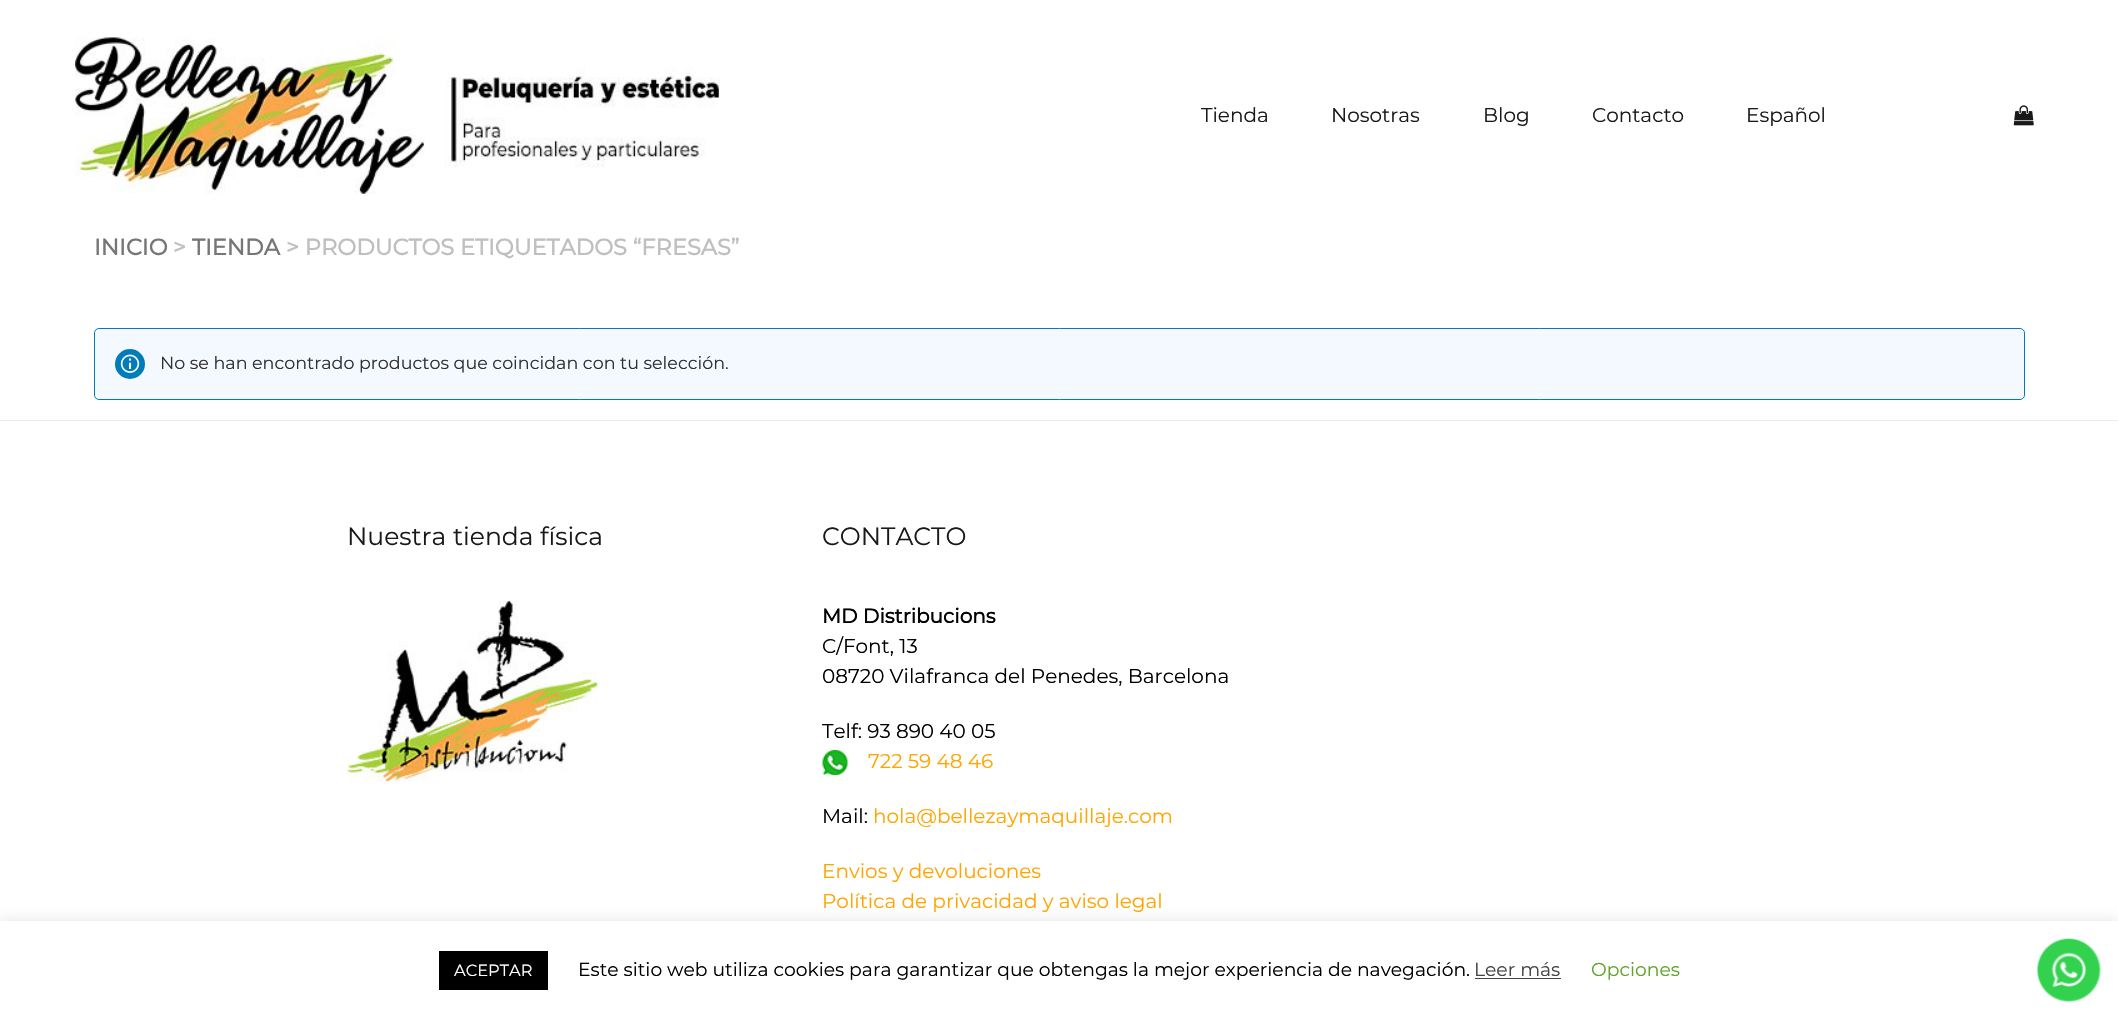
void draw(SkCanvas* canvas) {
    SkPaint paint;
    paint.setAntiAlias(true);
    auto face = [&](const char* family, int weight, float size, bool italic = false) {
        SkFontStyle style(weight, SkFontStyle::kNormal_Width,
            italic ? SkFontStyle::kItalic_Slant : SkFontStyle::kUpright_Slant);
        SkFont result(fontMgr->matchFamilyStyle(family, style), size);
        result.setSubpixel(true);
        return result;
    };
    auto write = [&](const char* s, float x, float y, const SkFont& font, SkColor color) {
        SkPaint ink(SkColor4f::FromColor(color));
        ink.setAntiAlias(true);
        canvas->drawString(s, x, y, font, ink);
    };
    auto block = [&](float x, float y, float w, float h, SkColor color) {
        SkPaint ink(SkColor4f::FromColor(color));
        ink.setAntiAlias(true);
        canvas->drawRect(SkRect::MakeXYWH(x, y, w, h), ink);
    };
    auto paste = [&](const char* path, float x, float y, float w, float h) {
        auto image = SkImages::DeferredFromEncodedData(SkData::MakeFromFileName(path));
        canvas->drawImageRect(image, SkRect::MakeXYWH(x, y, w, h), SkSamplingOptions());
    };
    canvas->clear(SK_ColorWHITE);
    paste("pic1.png", 75, 37, 645, 157);
    auto kFont1 = face("Montserrat", 400, 20);
    write("Tienda", 1201, 122, kFont1, SkColorSetRGB(25, 25, 25));
    write("Nosotras", 1331, 122, kFont1, SkColorSetRGB(25, 25, 25));
    write("Blog", 1483, 122, kFont1, SkColorSetRGB(25, 25, 25));
    write("Contacto", 1592, 122, kFont1, SkColorSetRGB(25, 25, 25));
    write("Español", 1746, 122, kFont1, SkColorSetRGB(25, 25, 25));
    paste("pic2.png", 2013, 105, 21, 21);
    auto kFont2 = face("Montserrat", 700, 22.5f);
    write("INICIO", 94, 255, kFont2, SkColorSetRGB(118, 118, 118));
    write(">", 173, 255, kFont2, SkColorSetRGB(191, 191, 191));
    write("TIENDA", 192, 255, kFont2, SkColorSetRGB(118, 118, 118));
    write("> PRODUCTOS ETIQUETADOS “FRESAS”", 286, 255, kFont2, SkColorSetRGB(191, 191, 191));
    paint.setColor(SkColorSetRGB(244, 248, 255));
    canvas->drawRoundRect(SkRect::MakeXYWH(94.5f, 328.5f, 1930, 71), 4.5f, 4.5f, paint);
    paint.setStyle(SkPaint::kStroke_Style);
    paint.setStrokeWidth(1);
    paint.setColor(SkColorSetRGB(0, 124, 186));
    canvas->drawRoundRect(SkRect::MakeXYWH(94.5f, 328.5f, 1930, 71), 4.5f, 4.5f, paint);
    paint.setStyle(SkPaint::kFill_Style);
    canvas->drawCircle(130, 364, 15, paint);
    paste("pic3.png", 120, 354, 20, 19);
    auto kFont3 = face("Montserrat", 400, 17.5f);
    write("No se han encontrado productos que coincidan con tu selección.", 160, 369, kFont3, SkColorSetRGB(47, 47, 47));
    block(0, 420, 2118, 1, SkColorSetRGB(235, 235, 235));
    auto kFont4 = face("Montserrat", 400, 25);
    write("Nuestra tienda física", 347, 545, kFont4, SkColorSetRGB(25, 25, 25));
    paste("pic4.png", 347, 601, 251, 181);
    write("CONTACTO", 822, 545, kFont4, SkColorSetRGB(25, 25, 25));
    auto kFont5 = face("Montserrat", 700, 20);
    write("MD Distribucions", 822, 623, kFont5, SK_ColorBLACK);
    write("C/Font, 13", 822, 653, kFont1, SK_ColorBLACK);
    write("08720 Vilafranca del Penedes, Barcelona", 822, 683, kFont1, SK_ColorBLACK);
    write("Telf: 93 890 40 05", 822, 738, kFont1, SK_ColorBLACK);
    paste("pic5.png", 822, 750, 26, 25);
    write("722 59 48 46", 868, 768, kFont1, SkColorSetRGB(255, 165, 0));
    write("Mail:", 822, 823, kFont1, SK_ColorBLACK);
    write("hola@bellezaymaquillaje.com", 873, 823, kFont1, SkColorSetRGB(255, 165, 0));
    write("Envios y devoluciones", 822, 878, kFont1, SkColorSetRGB(255, 165, 0));
    write("Política de privacidad y aviso legal", 822, 908, kFont1, SkColorSetRGB(255, 165, 0));
    paint.setColor(SkColorSetARGB(77, 172, 171, 171));
    paint.setMaskFilter(SkMaskFilter::MakeBlur(kNormal_SkBlurStyle, 6));
    canvas->drawRect(SkRect::MakeXYWH(0, 920, 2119, 99), paint);
    paint.setMaskFilter(nullptr);
    block(0, 921, 2118, 99, SK_ColorWHITE);
    block(439, 951, 109, 39, SK_ColorBLACK);
    auto kFont6 = face("Montserrat", 400, 16.25f);
    write("ACEPTAR", 454, 976, kFont6, SK_ColorWHITE);
    auto kFont7 = face("Montserrat", 400, 18.75f);
    write("Este sitio web utiliza cookies para garantizar que obtengas la mejor experiencia de navegación.", 578, 976, kFont7, SK_ColorBLACK);
    write("Leer más", 1474, 976, kFont7, SkColorSetRGB(68, 68, 68));
    block(1475, 978, 86, 1, SkColorSetRGB(68, 68, 68));
    write("Opciones", 1591, 976, kFont7, SkColorSetRGB(98, 163, 41));
    paste("pic6.png", 2037, 938, 64, 64);
}
